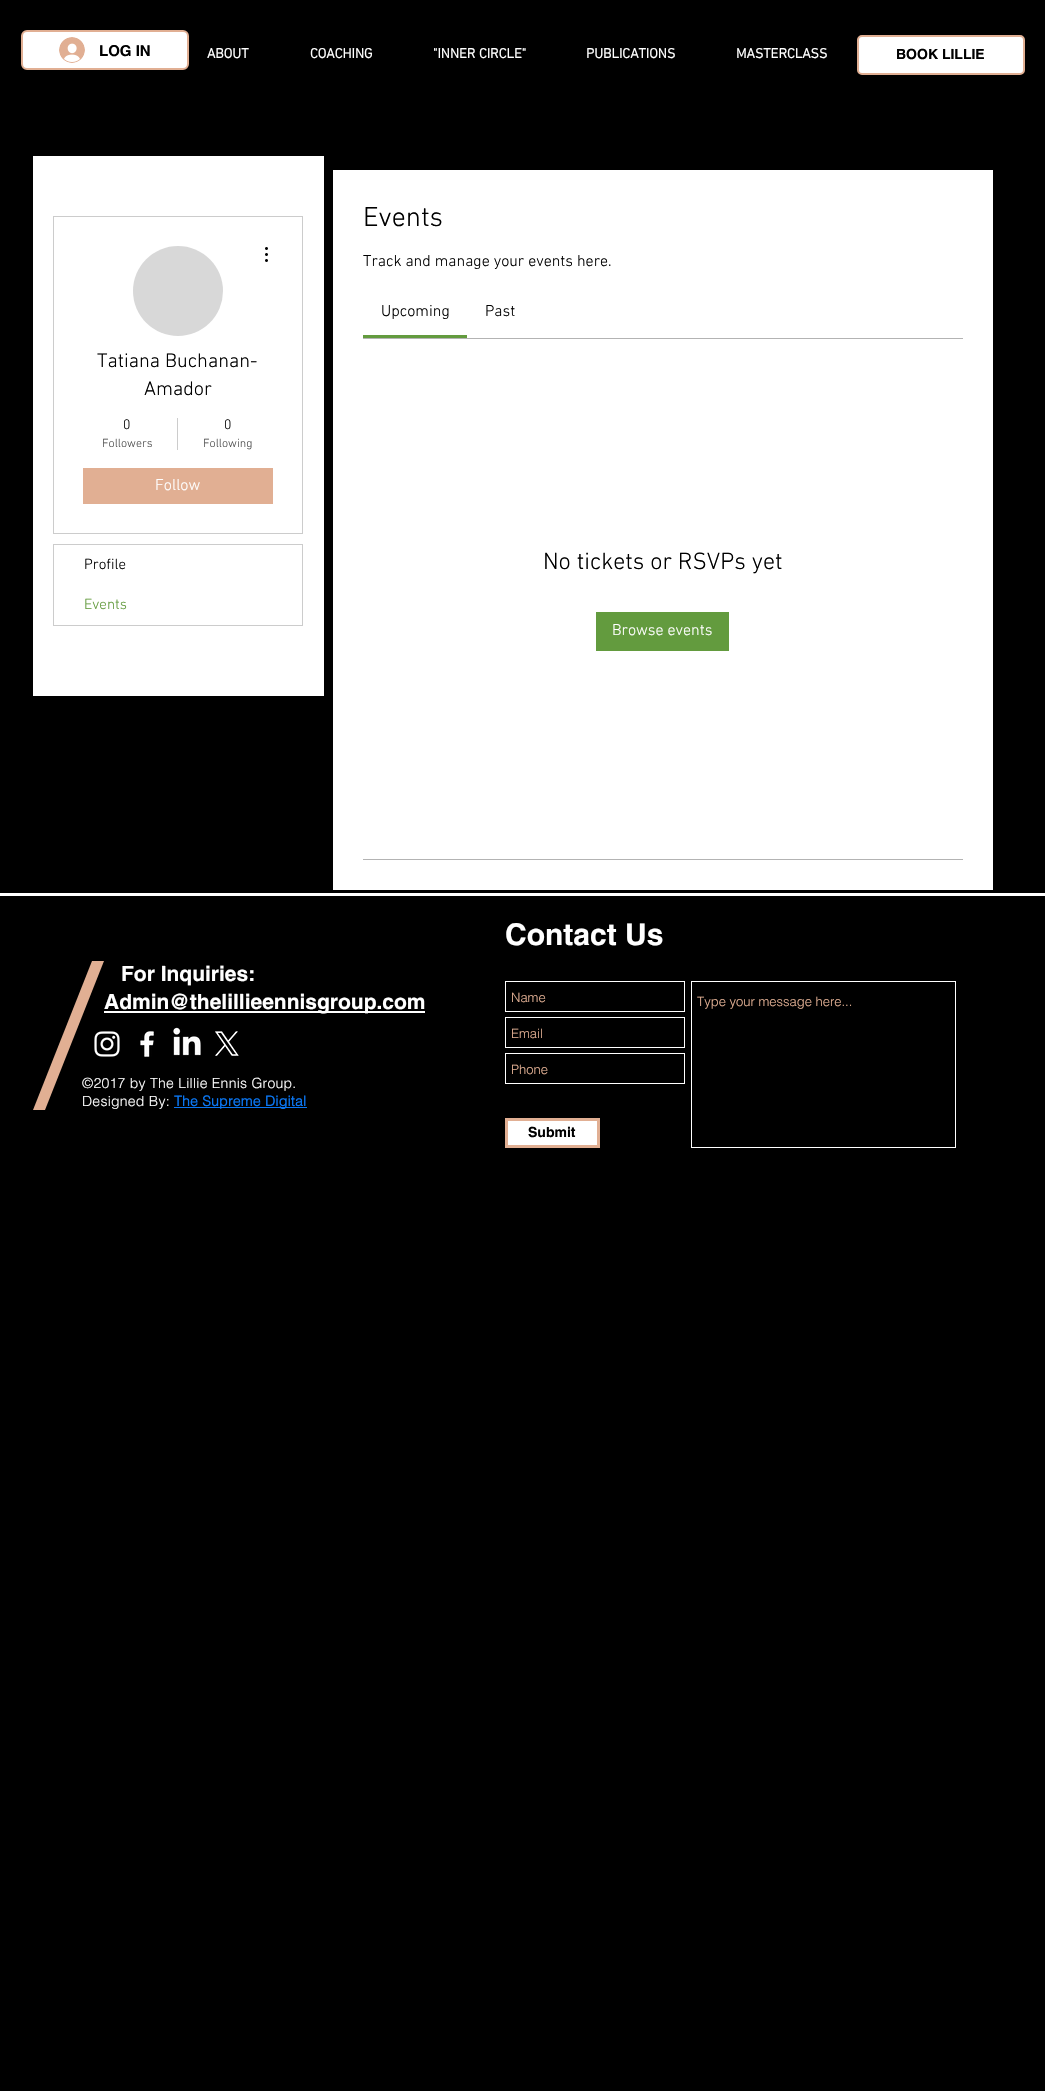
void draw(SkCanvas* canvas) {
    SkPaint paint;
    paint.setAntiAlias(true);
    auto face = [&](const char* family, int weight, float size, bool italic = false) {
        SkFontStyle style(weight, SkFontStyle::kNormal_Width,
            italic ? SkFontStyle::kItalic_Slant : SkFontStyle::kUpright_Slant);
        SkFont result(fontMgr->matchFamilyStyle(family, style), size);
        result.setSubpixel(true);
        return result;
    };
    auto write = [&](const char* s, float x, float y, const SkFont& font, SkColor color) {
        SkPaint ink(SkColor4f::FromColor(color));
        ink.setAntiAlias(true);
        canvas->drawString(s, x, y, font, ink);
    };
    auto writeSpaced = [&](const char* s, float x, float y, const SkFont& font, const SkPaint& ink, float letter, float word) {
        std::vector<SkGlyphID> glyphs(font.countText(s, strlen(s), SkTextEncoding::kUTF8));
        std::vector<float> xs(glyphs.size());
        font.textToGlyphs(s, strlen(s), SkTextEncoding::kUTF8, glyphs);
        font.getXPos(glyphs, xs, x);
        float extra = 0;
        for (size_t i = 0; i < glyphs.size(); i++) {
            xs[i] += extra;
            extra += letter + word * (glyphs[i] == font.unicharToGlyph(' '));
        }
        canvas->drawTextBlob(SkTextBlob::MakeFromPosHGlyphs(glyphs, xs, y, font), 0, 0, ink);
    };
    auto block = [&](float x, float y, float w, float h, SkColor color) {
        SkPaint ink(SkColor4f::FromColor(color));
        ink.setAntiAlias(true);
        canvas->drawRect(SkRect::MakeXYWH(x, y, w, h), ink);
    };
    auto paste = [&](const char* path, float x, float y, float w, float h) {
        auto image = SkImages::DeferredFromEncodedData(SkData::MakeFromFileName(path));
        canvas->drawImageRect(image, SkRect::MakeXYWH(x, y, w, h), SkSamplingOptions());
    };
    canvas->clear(SK_ColorBLACK);
    paint.setColor(SK_ColorWHITE);
    canvas->drawRoundRect(SkRect::MakeXYWH(22, 31, 166, 38), 5, 5, paint);
    paint.setStyle(SkPaint::kStroke_Style);
    paint.setStrokeWidth(2);
    paint.setColor(SkColorSetRGB(225, 175, 147));
    canvas->drawRoundRect(SkRect::MakeXYWH(22, 31, 166, 38), 5, 5, paint);
    paste("pic1.png", 59, 37, 26, 26);
    auto kFont1 = face("helvetica", 700, 15);
    write("LOG IN", 99, 56, kFont1, SK_ColorBLACK);
    auto kFont2 = face("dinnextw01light", 700, 14);
    write("ABOUT", 207, 58, kFont2, SK_ColorWHITE);
    write("COACHING", 310, 58, kFont2, SK_ColorWHITE);
    write("\"INNER CIRCLE\"", 433, 58, kFont2, SK_ColorWHITE);
    write("PUBLICATIONS", 586, 58, kFont2, SK_ColorWHITE);
    write("MASTERCLASS", 736, 58, kFont2, SK_ColorWHITE);
    paint.setStyle(SkPaint::kFill_Style);
    paint.setColor(SK_ColorWHITE);
    canvas->drawRoundRect(SkRect::MakeXYWH(858, 36, 166, 38), 4, 4, paint);
    paint.setStyle(SkPaint::kStroke_Style);
    paint.setColor(SkColorSetRGB(225, 175, 147));
    canvas->drawRoundRect(SkRect::MakeXYWH(858, 36, 166, 38), 4, 4, paint);
    auto kFont3 = face("helvetica", 700, 14);
    write("BOOK LILLIE", 896, 59, kFont3, SK_ColorBLACK);
    block(33, 156, 291, 540, SK_ColorWHITE);
    paint.setStrokeWidth(1);
    paint.setColor(SkColorSetRGB(204, 204, 204));
    canvas->drawRect(SkRect::MakeXYWH(53.5f, 216.5f, 249, 317), paint);
    paint.setStyle(SkPaint::kFill_Style);
    paint.setColor(SkColorSetRGB(216, 216, 216));
    canvas->drawCircle(178, 291, 45, paint);
    paste("pic2.png", 265, 247, 3, 15);
    auto kFont4 = face("dinnextw01light", 300, 20);
    write("Tatiana Buchanan-", 97, 367, kFont4, SK_ColorBLACK);
    write("Amador", 144, 395, kFont4, SK_ColorBLACK);
    auto kFont5 = face("dinnextw01light", 300, 14);
    write("0", 123, 429, kFont5, SK_ColorBLACK);
    auto kFont6 = face("dinnextw01light", 300, 12);
    write("Followers", 102, 447, kFont6, SkColorSetRGB(77, 77, 77));
    block(177, 418, 1, 32, SkColorSetRGB(204, 204, 204));
    write("0", 224, 429, kFont5, SK_ColorBLACK);
    write("Following", 203, 447, kFont6, SkColorSetRGB(77, 77, 77));
    block(83, 468, 190, 36, SkColorSetRGB(225, 175, 147));
    auto kFont7 = face("dinnextw01light", 300, 16);
    write("Follow", 155, 490, kFont7, SK_ColorWHITE);
    paint.setStyle(SkPaint::kStroke_Style);
    paint.setColor(SkColorSetRGB(204, 204, 204));
    canvas->drawRect(SkRect::MakeXYWH(53.5f, 544.5f, 249, 81), paint);
    auto kFont8 = face("dinnextw01light", 300, 15);
    write("Profile", 84, 569, kFont8, SK_ColorBLACK);
    write("Events", 84, 609, kFont8, SkColorSetRGB(99, 155, 62));
    block(333, 170, 660, 720, SK_ColorWHITE);
    auto kFont9 = face("dinnextw01light", 300, 28);
    write("Events", 363, 226, kFont9, SK_ColorBLACK);
    write("Track and manage your events here.", 363, 266, kFont7, SK_ColorBLACK);
    block(363, 335, 104, 3, SkColorSetRGB(99, 155, 62));
    write("Upcoming", 381, 316, kFont7, SK_ColorBLACK);
    write("Past", 485, 316, kFont7, SK_ColorBLACK);
    block(363, 338, 600, 1, SkColorSetRGB(179, 179, 179));
    auto kFont10 = face("dinnextw01light", 300, 24);
    write("No tickets or RSVPs yet", 543, 569, kFont10, SK_ColorBLACK);
    block(596, 612, 133, 39, SkColorSetRGB(99, 155, 62));
    write("Browse events", 612, 635, kFont7, SK_ColorWHITE);
    block(363, 859, 600, 1, SkColorSetRGB(179, 179, 179));
    block(0, 893, 1045, 3, SK_ColorWHITE);
    paint.setStyle(SkPaint::kFill_Style);
    paint.setColor(SkColorSetRGB(225, 175, 147));
    canvas->drawPath(SkPathBuilder(SkPathFillType::kEvenOdd).moveTo(92, 961).lineTo(104, 961).lineTo(45, 1110).lineTo(33, 1110).close().detach(), paint);
    auto kFont11 = face("helvetica", 700, 21);
    write("For Inquiries:", 121, 981, kFont11, SK_ColorWHITE);
    block(104, 1011, 321, 2, SK_ColorWHITE);
    write("Admin@thelillieennisgroup.com", 104, 1009, kFont11, SK_ColorWHITE);
    paste("pic3.png", 94, 1031, 26, 26);
    paste("pic4.png", 140, 1031, 14, 26);
    paste("pic5.png", 173, 1027, 28, 29);
    paste("pic6.png", 215, 1031, 24, 25);
    auto kFont12 = face("helvetica", 300, 14);
    paint.setColor(SK_ColorWHITE);
    writeSpaced("©2017 by The Lillie Ennis Group.", 82, 1088, kFont12, paint, 0.25f, 0);
    writeSpaced("Designed By:", 82, 1106, kFont12, paint, 0.25f, 0);
    block(174, 1107, 133, 1, SkColorSetRGB(10, 118, 242));
    auto kFont13 = face("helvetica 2", 700, 14);
    paint.setColor(SkColorSetRGB(10, 118, 242));
    writeSpaced("The Supreme Digital", 174, 1106, kFont13, paint, 0.25f, 0);
    auto kFont14 = face("helvetica", 700, 30);
    write("Contact Us", 505, 945, kFont14, SK_ColorWHITE);
    paint.setStyle(SkPaint::kStroke_Style);
    paint.setColor(SK_ColorWHITE);
    canvas->drawRect(SkRect::MakeXYWH(505.5f, 981.5f, 179, 30), paint);
    auto kFont15 = face("helvetica", 300, 13);
    write("Name", 511, 1002, kFont15, SkColorSetRGB(225, 175, 147));
    canvas->drawRect(SkRect::MakeXYWH(691.5f, 981.5f, 264, 166), paint);
    write("Type your message here...", 697, 1006, kFont15, SkColorSetRGB(225, 175, 147));
    canvas->drawRect(SkRect::MakeXYWH(505.5f, 1017.5f, 179, 30), paint);
    write("Email", 511, 1038, kFont15, SkColorSetRGB(225, 175, 147));
    canvas->drawRect(SkRect::MakeXYWH(505.5f, 1053.5f, 179, 30), paint);
    write("Phone", 511, 1074, kFont15, SkColorSetRGB(225, 175, 147));
    paint.setStyle(SkPaint::kFill_Style);
    canvas->drawRect(SkRect::MakeXYWH(506.5f, 1119.5f, 92, 27), paint);
    paint.setStyle(SkPaint::kStroke_Style);
    paint.setStrokeWidth(3);
    paint.setColor(SkColorSetRGB(225, 175, 147));
    canvas->drawRect(SkRect::MakeXYWH(506.5f, 1119.5f, 92, 27), paint);
    write("Submit", 528, 1137, kFont3, SK_ColorBLACK);
}
